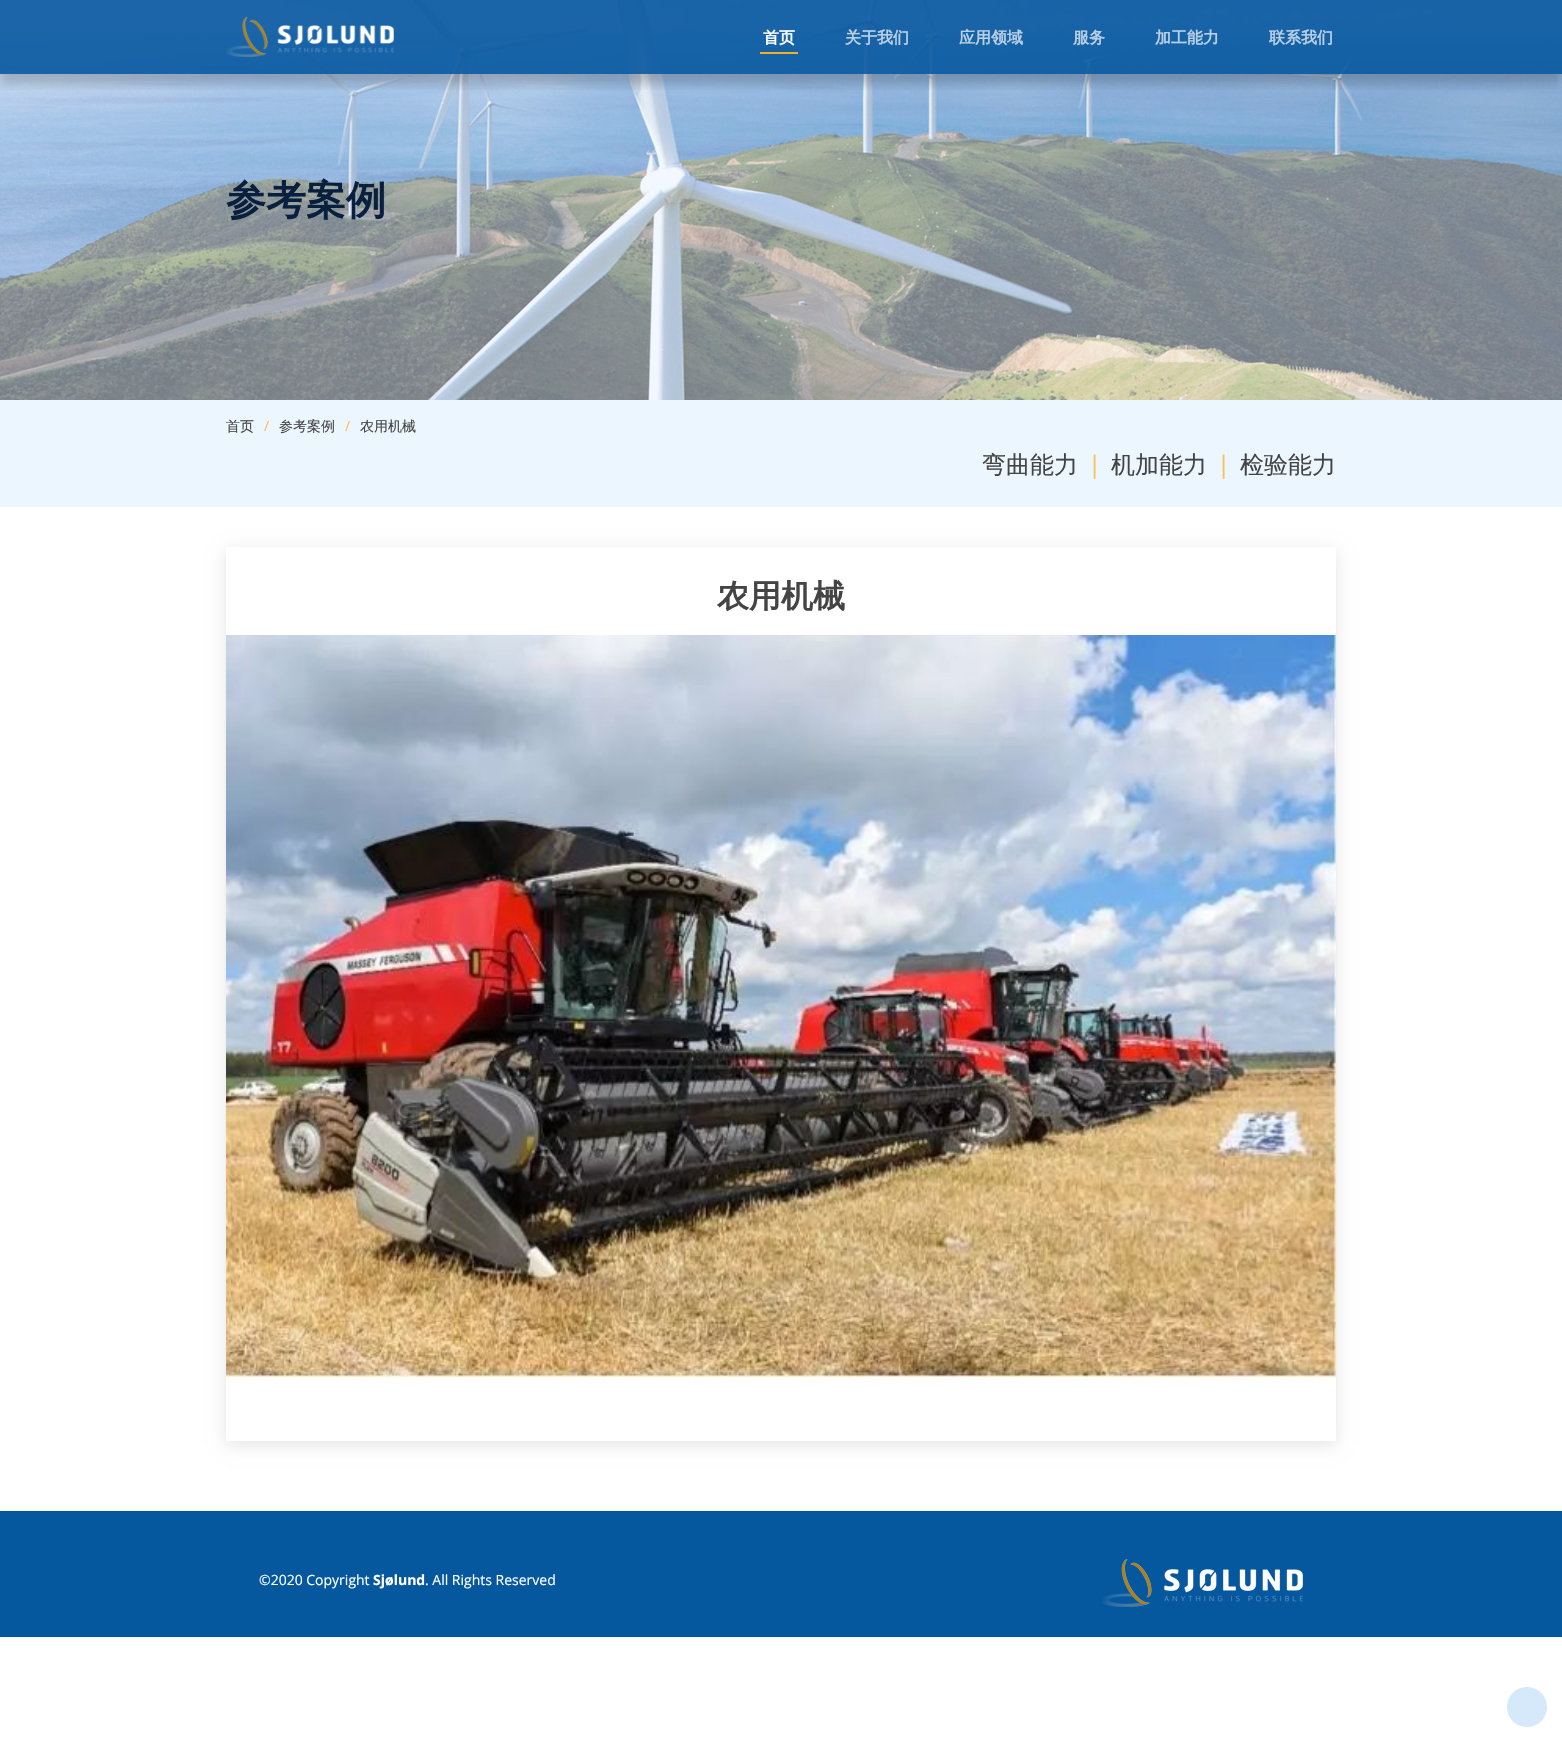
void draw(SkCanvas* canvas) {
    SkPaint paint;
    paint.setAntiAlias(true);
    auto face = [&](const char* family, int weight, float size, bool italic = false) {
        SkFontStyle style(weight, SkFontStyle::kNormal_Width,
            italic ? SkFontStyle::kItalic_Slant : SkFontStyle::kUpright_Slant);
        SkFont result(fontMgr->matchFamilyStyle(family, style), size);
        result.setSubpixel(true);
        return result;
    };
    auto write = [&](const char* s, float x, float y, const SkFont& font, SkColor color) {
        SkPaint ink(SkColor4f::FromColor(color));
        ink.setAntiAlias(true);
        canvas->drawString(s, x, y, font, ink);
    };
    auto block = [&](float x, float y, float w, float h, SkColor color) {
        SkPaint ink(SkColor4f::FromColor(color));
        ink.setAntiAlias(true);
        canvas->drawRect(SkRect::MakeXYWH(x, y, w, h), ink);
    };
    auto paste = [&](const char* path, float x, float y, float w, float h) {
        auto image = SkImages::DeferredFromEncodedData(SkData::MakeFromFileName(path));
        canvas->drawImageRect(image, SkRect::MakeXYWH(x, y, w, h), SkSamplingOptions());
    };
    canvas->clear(SK_ColorWHITE);
    paste("pic2.png", 0, 0, 1562, 400);
    canvas->save();
    canvas->clipRect(SkRect::MakeXYWH(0, 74, 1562, 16));
    paint.setColor(SkColorSetARGB(51, 0, 0, 0));
    paint.setMaskFilter(SkMaskFilter::MakeBlur(kNormal_SkBlurStyle, 5));
    canvas->drawRect(SkRect::MakeXYWH(0, 10, 1562, 74), paint);
    paint.setMaskFilter(nullptr);
    canvas->restore();
    block(0, 0, 1562, 74, SkColorSetARGB(230, 5, 87, 158));
    paste("pic1.png", 226, 17, 168, 40);
    auto kFont1 = face("WenQuanYi Zen Hei", 700, 16);
    write("首页", 763, 43, kFont1, SK_ColorWHITE);
    block(760, 52, 38, 2, SkColorSetRGB(246, 176, 36));
    write("关于我们", 845, 43, kFont1, SkColorSetRGB(185, 208, 228));
    write("应用领域", 959, 43, kFont1, SkColorSetRGB(185, 208, 228));
    write("服务", 1073, 43, kFont1, SkColorSetRGB(185, 208, 228));
    write("加工能力", 1155, 43, kFont1, SkColorSetRGB(185, 208, 228));
    write("联系我们", 1269, 43, kFont1, SkColorSetRGB(185, 208, 228));
    auto kFont2 = face("WenQuanYi Zen Hei", 700, 40);
    write("参考案例", 226, 214, kFont2, SkColorSetRGB(8, 31, 62));
    block(0, 400, 1562, 107, SkColorSetRGB(236, 246, 254));
    auto kFont3 = face("WenQuanYi Zen Hei", 500, 14);
    write("首页", 226, 431, kFont3, SkColorSetRGB(68, 68, 68));
    auto kFont4 = face("Open Sans", 400, 14);
    write("/", 264, 431, kFont4, SkColorSetRGB(248, 194, 85));
    write("参考案例", 279, 431, kFont3, SkColorSetRGB(68, 68, 68));
    write("/", 345, 431, kFont4, SkColorSetRGB(248, 194, 85));
    write("农用机械", 360, 431, kFont3, SkColorSetRGB(68, 68, 68));
    auto kFont5 = face("WenQuanYi Zen Hei", 500, 24);
    write("弯曲能力", 982, 473, kFont5, SkColorSetRGB(68, 68, 68));
    auto kFont6 = face("Open Sans", 400, 24);
    write("|", 1088, 473, kFont6, SkColorSetRGB(248, 194, 85));
    write("机加能力", 1111, 473, kFont5, SkColorSetRGB(68, 68, 68));
    write("|", 1217, 473, kFont6, SkColorSetRGB(248, 194, 85));
    write("检验能力", 1240, 473, kFont5, SkColorSetRGB(68, 68, 68));
    canvas->save();
    canvas->clipPath(SkPathBuilder(SkPathFillType::kEvenOdd).moveTo(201, 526).lineTo(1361, 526).lineTo(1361, 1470).lineTo(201, 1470).close().moveTo(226, 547).lineTo(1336, 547).lineTo(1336, 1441).lineTo(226, 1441).close().detach(), true);
    paint.setColor(SkColorSetARGB(26, 0, 0, 0));
    paint.setMaskFilter(SkMaskFilter::MakeBlur(kNormal_SkBlurStyle, 8));
    canvas->drawRect(SkRect::MakeXYWH(226, 551, 1110, 894), paint);
    paint.setMaskFilter(nullptr);
    canvas->restore();
    auto kFont7 = face("WenQuanYi Zen Hei", 700, 32);
    write("农用机械", 717, 607, kFont7, SkColorSetRGB(68, 68, 68));
    paste("pic3.png", 226, 635, 1110, 742);
    block(0, 1511, 1562, 126, SkColorSetRGB(5, 87, 158));
    write("©2020 Copyright", 259, 1585, kFont4, SK_ColorWHITE);
    auto kFont8 = face("Open Sans", 700, 14);
    write("Sjølund", 373, 1585, kFont8, SK_ColorWHITE);
    write(". All Rights Reserved", 425, 1585, kFont4, SK_ColorWHITE);
    paste("pic4.png", 1102, 1559, 201, 48);
    paint.setColor(SkColorSetRGB(213, 233, 251));
    canvas->drawCircle(1527, 1707, 20, paint);
}
